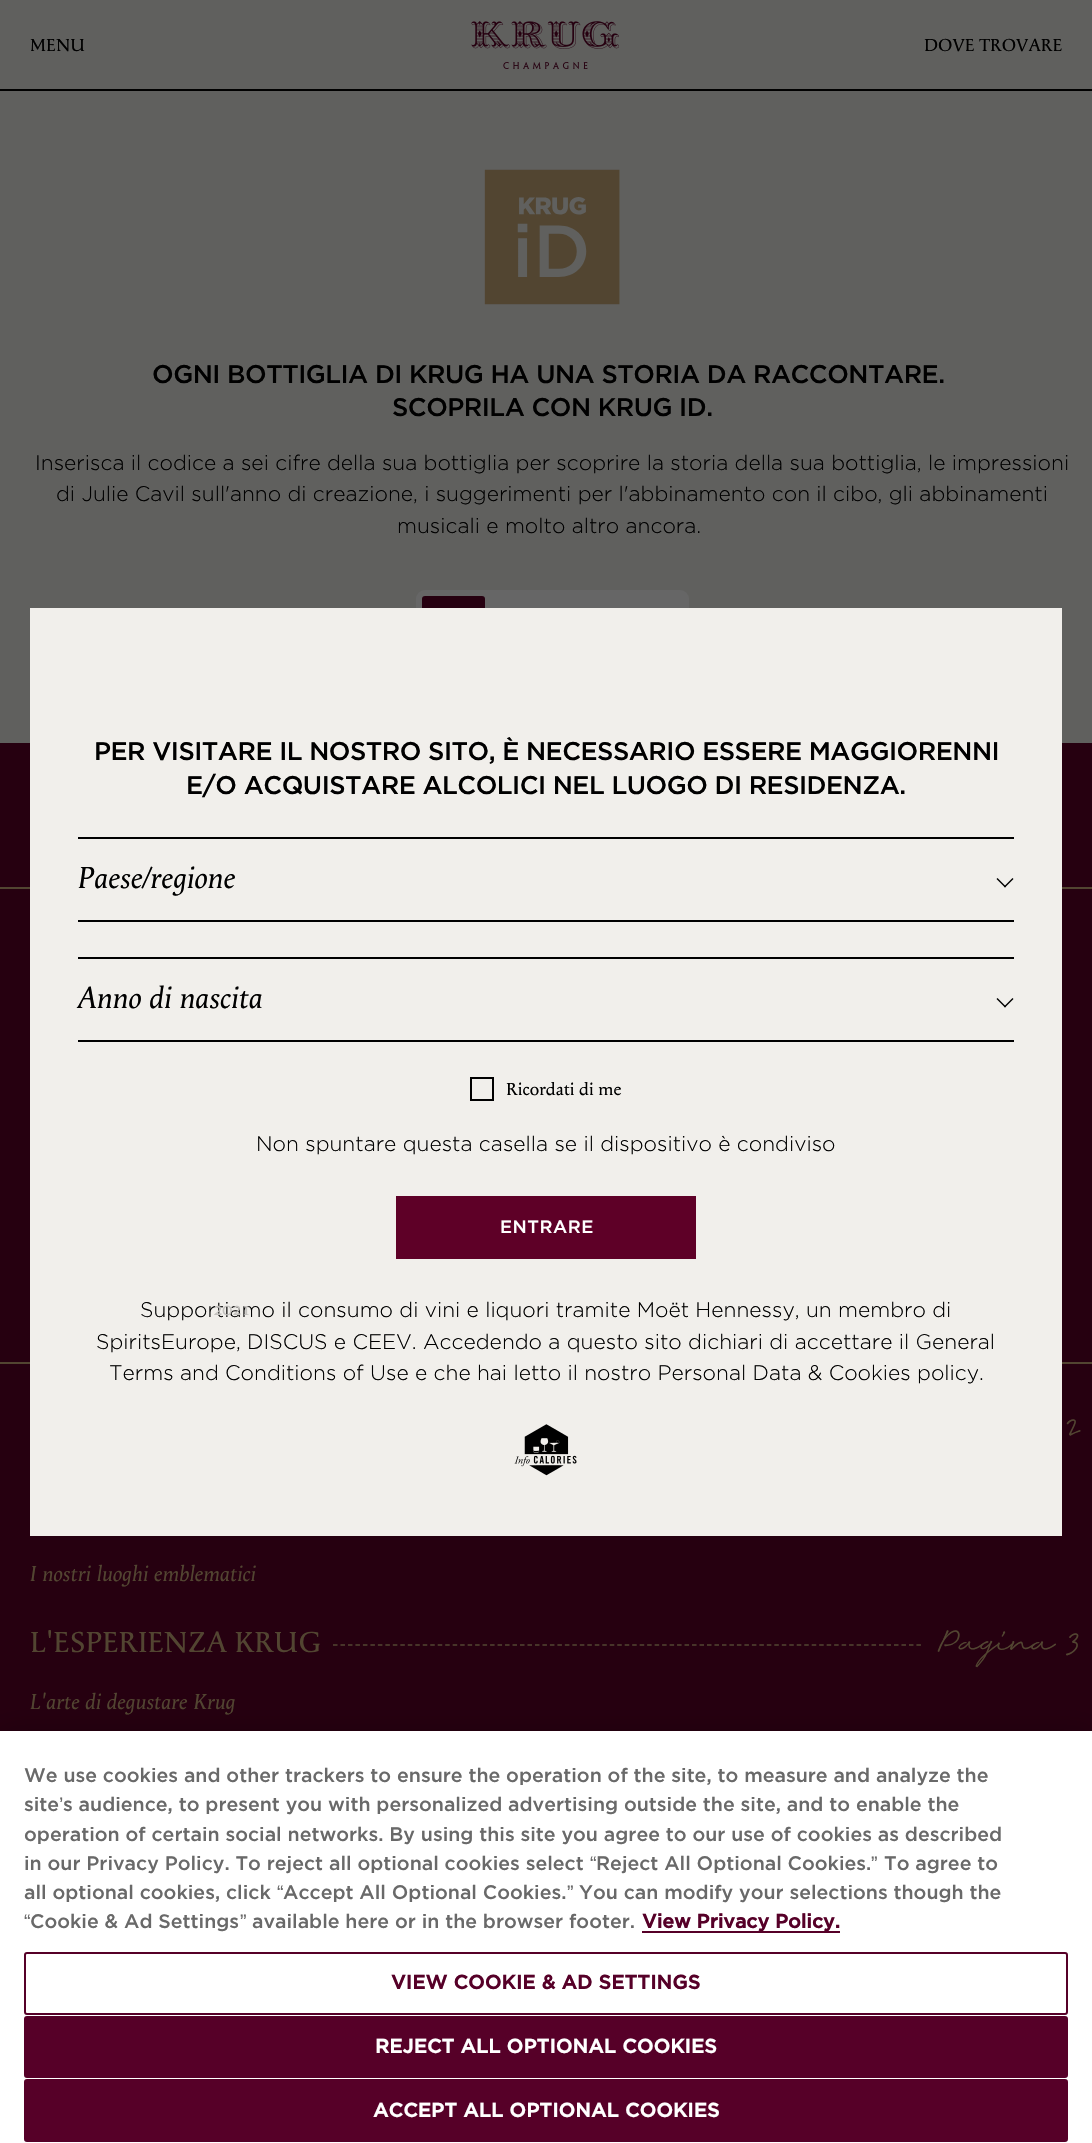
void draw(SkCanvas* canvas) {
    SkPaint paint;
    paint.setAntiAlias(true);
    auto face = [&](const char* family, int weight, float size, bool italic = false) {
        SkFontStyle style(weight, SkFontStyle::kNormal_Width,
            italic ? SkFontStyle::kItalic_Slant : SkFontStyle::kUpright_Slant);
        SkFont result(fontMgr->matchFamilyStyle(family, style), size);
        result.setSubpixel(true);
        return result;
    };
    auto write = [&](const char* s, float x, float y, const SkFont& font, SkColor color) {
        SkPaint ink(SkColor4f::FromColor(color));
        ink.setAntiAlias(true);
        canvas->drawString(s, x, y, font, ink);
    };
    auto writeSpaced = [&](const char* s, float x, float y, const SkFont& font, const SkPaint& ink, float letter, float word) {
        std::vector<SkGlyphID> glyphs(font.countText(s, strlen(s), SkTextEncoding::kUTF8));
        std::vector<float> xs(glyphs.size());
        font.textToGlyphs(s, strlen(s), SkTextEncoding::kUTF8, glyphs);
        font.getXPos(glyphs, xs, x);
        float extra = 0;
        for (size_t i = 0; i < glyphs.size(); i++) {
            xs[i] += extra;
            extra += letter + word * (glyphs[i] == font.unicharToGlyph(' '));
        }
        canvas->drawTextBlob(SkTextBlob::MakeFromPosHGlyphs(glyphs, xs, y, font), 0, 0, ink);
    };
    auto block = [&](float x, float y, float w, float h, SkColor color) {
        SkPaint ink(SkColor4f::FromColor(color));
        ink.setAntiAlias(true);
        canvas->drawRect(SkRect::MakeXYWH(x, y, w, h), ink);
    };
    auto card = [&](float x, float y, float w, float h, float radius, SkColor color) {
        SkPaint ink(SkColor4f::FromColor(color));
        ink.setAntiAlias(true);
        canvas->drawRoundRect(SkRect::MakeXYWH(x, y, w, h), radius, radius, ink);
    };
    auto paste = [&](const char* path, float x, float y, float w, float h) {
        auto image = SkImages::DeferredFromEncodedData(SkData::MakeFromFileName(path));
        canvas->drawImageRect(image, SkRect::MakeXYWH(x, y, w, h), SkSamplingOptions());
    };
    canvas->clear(SkColorSetRGB(96, 96, 94));
    block(0, 89, 1092, 2, SK_ColorBLACK);
    auto kFont1 = face("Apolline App", 400, 18);
    write("MENU", 30, 51, kFont1, SK_ColorBLACK);
    paste("pic1.png", 471, 21, 148, 48);
    write("DOVE TROVARE", 924, 51, kFont1, SK_ColorBLACK);
    paste("pic2.png", 484, 169, 136, 136);
    auto kFont2 = face("Gotham", 500, 25.5f);
    paint.setColor(SK_ColorBLACK);
    writeSpaced("OGNI BOTTIGLIA DI KRUG HA UNA STORIA DA RACCONTARE.", 152, 383, kFont2, paint, -0.5f, 0);
    writeSpaced("SCOPRILA CON KRUG ID.", 392, 416, kFont2, paint, -0.5f, 0);
    auto kFont3 = face("Gotham", 300, 21);
    write("Inserisca il codice a sei cifre della sua bottiglia per scoprire la storia della sua bottiglia, le impressioni", 35, 470, kFont3, SK_ColorBLACK);
    write("di Julie Cavil sull'anno di creazione, i suggerimenti per l'abbinamento con il cibo, gli abbinamenti", 56, 501, kFont3, SK_ColorBLACK);
    write("musicali e molto altro ancora.", 397, 533, kFont3, SK_ColorBLACK);
    card(416, 590, 273, 81, 9, SkColorSetRGB(102, 102, 102));
    card(422, 596, 63, 69, 3, SkColorSetRGB(38, 0, 16));
    block(0, 743, 1092, 988, SkColorSetRGB(38, 0, 16));
    block(0, 887, 1092, 2, SkColorSetRGB(82, 69, 49));
    block(0, 1362, 1092, 2, SkColorSetRGB(82, 69, 49));
    auto kFont4 = face("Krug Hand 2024", 400, 27);
    write("2", 1062, 1435, kFont4, SkColorSetRGB(82, 69, 49));
    auto kFont5 = face("Apolline App", 400, 22.5f, true);
    write("I nostri luoghi emblematici", 30, 1581, kFont5, SkColorSetRGB(82, 69, 49));
    auto kFont6 = face("Apolline App", 400, 30);
    write("L'ESPERIENZA KRUG", 30, 1652, kFont6, SkColorSetRGB(82, 69, 49));
    paint.setStyle(SkPaint::kStroke_Style);
    paint.setStrokeWidth(1.5f);
    paint.setColor(SkColorSetRGB(82, 69, 49));
    paint.setPathEffect(SkDashPathEffect::Make({{4.5f, 2.98f}}, 0));
    canvas->drawPath(SkPathBuilder().moveTo(333, 1645).lineTo(921, 1645).detach(), paint);
    paint.setPathEffect(nullptr);
    write("Pagina 3", 933, 1649, kFont4, SkColorSetRGB(82, 69, 49));
    write("L'arte di degustare Krug", 30, 1709, kFont5, SkColorSetRGB(82, 69, 49));
    block(30, 608, 1032, 928, SkColorSetRGB(241, 239, 235));
    paint.setStyle(SkPaint::kFill_Style);
    paint.setColor(SK_ColorBLACK);
    writeSpaced("PER VISITARE IL NOSTRO SITO, È NECESSARIO ESSERE MAGGIORENNI", 94, 760, kFont2, paint, -0.5f, 0);
    writeSpaced("E/O ACQUISTARE ALCOLICI NEL LUOGO DI RESIDENZA.", 186, 794, kFont2, paint, -0.5f, 0);
    block(78, 837, 936, 2, SK_ColorBLACK);
    block(78, 920, 936, 2, SK_ColorBLACK);
    auto kFont7 = face("Apolline App", 400, 31.5f, true);
    write("Paese/regione", 78, 888, kFont7, SK_ColorBLACK);
    canvas->drawPath(SkPathBuilder().moveTo(1012.5f, 878).lineTo(1013.5f, 879).lineTo(1005, 887.5f).lineTo(1004, 886.5f).close().detach(), paint);
    canvas->drawPath(SkPathBuilder().moveTo(997.5f, 878).lineTo(1006, 886.5f).lineTo(1005, 887.5f).lineTo(996.5f, 879).close().detach(), paint);
    block(78, 957, 936, 2, SK_ColorBLACK);
    block(78, 1040, 936, 2, SK_ColorBLACK);
    write("Anno di nascita", 78, 1008, kFont7, SK_ColorBLACK);
    canvas->drawPath(SkPathBuilder().moveTo(1012.5f, 998).lineTo(1013.5f, 999).lineTo(1005, 1007.5f).lineTo(1004, 1006.5f).close().detach(), paint);
    canvas->drawPath(SkPathBuilder().moveTo(997.5f, 998).lineTo(1006, 1006.5f).lineTo(1005, 1007.5f).lineTo(996.5f, 999).close().detach(), paint);
    write("Supportiamo il consumo di vini e liquori tramite Moët Hennessy, un membro di", 140, 1317, kFont3, SK_ColorBLACK);
    auto kFont8 = face("Apolline App", 400, 19);
    write("2021", 213, 1315, kFont8, SkColorSetRGB(195, 193, 190));
    paint.setStyle(SkPaint::kStroke_Style);
    paint.setStrokeWidth(2);
    canvas->drawRect(SkRect::MakeXYWH(471, 1078, 22, 22), paint);
    write("Ricordati di me", 506, 1095, kFont1, SK_ColorBLACK);
    write("Non spuntare questa casella se il dispositivo è condiviso", 256, 1151, kFont3, SK_ColorBLACK);
    block(396, 1196, 300, 63, SkColorSetRGB(94, 0, 39));
    auto kFont9 = face("Gotham", 500, 18);
    paint.setStyle(SkPaint::kFill_Style);
    paint.setColor(SK_ColorWHITE);
    writeSpaced("ENTRARE", 500, 1233, kFont9, paint, 0.5f, 0);
    write("SpiritsEurope, DISCUS e CEEV. Accedendo a questo sito dichiari di accettare il General", 96, 1349, kFont3, SK_ColorBLACK);
    write("Terms and Conditions of Use e che hai letto il nostro Personal Data & Cookies policy.", 109, 1380, kFont3, SK_ColorBLACK);
    paste("pic3.png", 514, 1424, 63, 52);
    paint.setColor(SkColorSetARGB(51, 0, 0, 0));
    paint.setMaskFilter(SkMaskFilter::MakeBlur(kNormal_SkBlurStyle, 13.5f));
    canvas->drawRect(SkRect::MakeXYWH(0, 1731, 1092, 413), paint);
    paint.setMaskFilter(nullptr);
    block(0, 1731, 1092, 412, SK_ColorWHITE);
    auto kFont10 = face("Gotham", 500, 19.5f);
    write("We use cookies and other trackers to ensure the operation of the site, to measure and analyze the", 24, 1782, kFont10, SkColorSetRGB(105, 105, 105));
    write("site", 24, 1811, kFont10, SkColorSetRGB(105, 105, 105));
    auto kFont11 = face("Liberation Sans", 400, 19.5f);
    write("’", 59, 1811, kFont11, SkColorSetRGB(105, 105, 105));
    write("s audience, to present you with personalized advertising outside the site, and to enable the", 63, 1811, kFont10, SkColorSetRGB(105, 105, 105));
    write("operation of certain social networks. By using this site you agree to our use of cookies as described", 24, 1841, kFont10, SkColorSetRGB(105, 105, 105));
    write("in our Privacy Policy. To reject all optional cookies select", 24, 1870, kFont10, SkColorSetRGB(105, 105, 105));
    write("“", 590, 1870, kFont11, SkColorSetRGB(105, 105, 105));
    write("Reject All Optional Cookies.", 596, 1870, kFont10, SkColorSetRGB(105, 105, 105));
    write("”", 871, 1870, kFont11, SkColorSetRGB(105, 105, 105));
    write("To agree to", 884, 1870, kFont10, SkColorSetRGB(105, 105, 105));
    write("all optional cookies, click", 24, 1899, kFont10, SkColorSetRGB(105, 105, 105));
    write("“", 277, 1899, kFont11, SkColorSetRGB(105, 105, 105));
    write("Accept All Optional Cookies.", 283, 1899, kFont10, SkColorSetRGB(105, 105, 105));
    write("”", 567, 1899, kFont11, SkColorSetRGB(105, 105, 105));
    write("You can modify your selections though the", 579, 1899, kFont10, SkColorSetRGB(105, 105, 105));
    write("“", 24, 1928, kFont11, SkColorSetRGB(105, 105, 105));
    write("Cookie & Ad Settings", 30, 1928, kFont10, SkColorSetRGB(105, 105, 105));
    write("”", 240, 1928, kFont11, SkColorSetRGB(105, 105, 105));
    write("available here or in the browser footer.", 252, 1928, kFont10, SkColorSetRGB(105, 105, 105));
    block(642, 1931, 198, 2, SkColorSetRGB(86, 0, 40));
    auto kFont12 = face("Gotham", 700, 19.5f);
    write("View Privacy Policy.", 642, 1928, kFont12, SkColorSetRGB(86, 0, 40));
    paint.setStyle(SkPaint::kStroke_Style);
    paint.setColor(SkColorSetRGB(86, 0, 40));
    canvas->drawRoundRect(SkRect::MakeXYWH(25, 1953, 1042, 61), 2, 2, paint);
    paint.setStyle(SkPaint::kFill_Style);
    writeSpaced("VIEW COOKIE & AD SETTINGS", 391, 1989, kFont12, paint, 0.2f, 0);
    canvas->drawRoundRect(SkRect::MakeXYWH(25, 2017, 1042, 60), 2, 2, paint);
    paint.setStyle(SkPaint::kStroke_Style);
    canvas->drawRoundRect(SkRect::MakeXYWH(25, 2017, 1042, 60), 2, 2, paint);
    paint.setStyle(SkPaint::kFill_Style);
    paint.setColor(SK_ColorWHITE);
    writeSpaced("REJECT ALL OPTIONAL COOKIES", 375, 2053, kFont12, paint, 0.2f, 0);
    paint.setColor(SkColorSetRGB(86, 0, 40));
    canvas->drawRoundRect(SkRect::MakeXYWH(25, 2080, 1042, 61), 2, 2, paint);
    paint.setStyle(SkPaint::kStroke_Style);
    canvas->drawRoundRect(SkRect::MakeXYWH(25, 2080, 1042, 61), 2, 2, paint);
    paint.setStyle(SkPaint::kFill_Style);
    paint.setColor(SK_ColorWHITE);
    writeSpaced("ACCEPT ALL OPTIONAL COOKIES", 373, 2117, kFont12, paint, 0.2f, 0);
}
